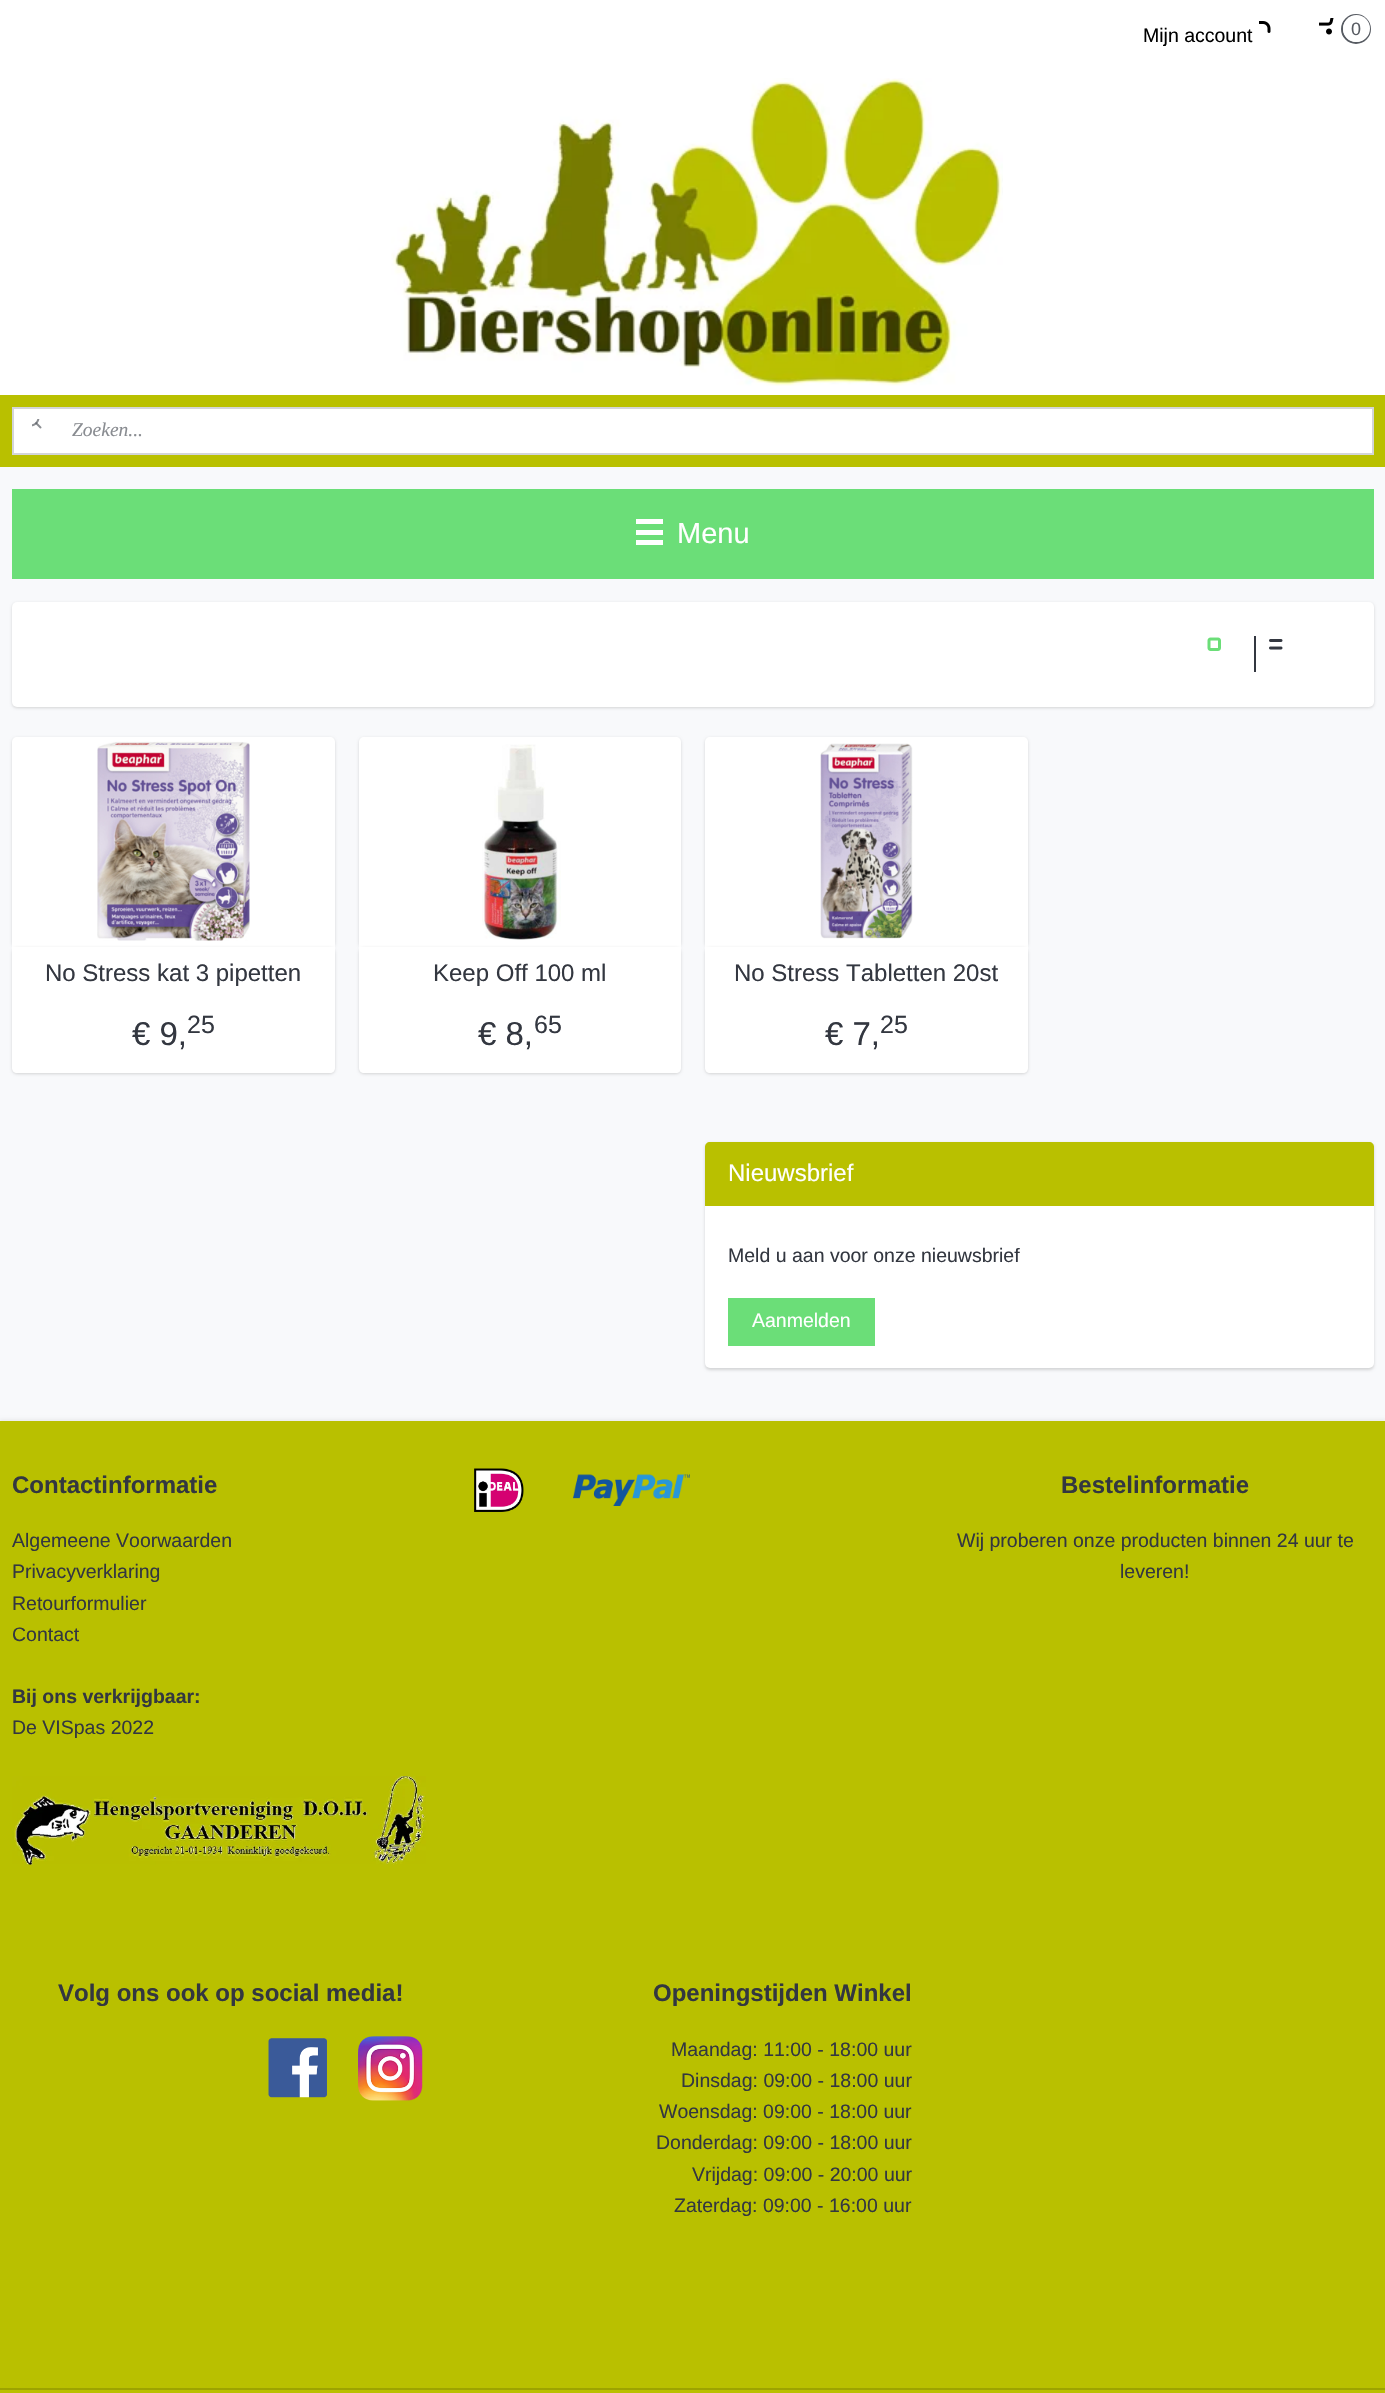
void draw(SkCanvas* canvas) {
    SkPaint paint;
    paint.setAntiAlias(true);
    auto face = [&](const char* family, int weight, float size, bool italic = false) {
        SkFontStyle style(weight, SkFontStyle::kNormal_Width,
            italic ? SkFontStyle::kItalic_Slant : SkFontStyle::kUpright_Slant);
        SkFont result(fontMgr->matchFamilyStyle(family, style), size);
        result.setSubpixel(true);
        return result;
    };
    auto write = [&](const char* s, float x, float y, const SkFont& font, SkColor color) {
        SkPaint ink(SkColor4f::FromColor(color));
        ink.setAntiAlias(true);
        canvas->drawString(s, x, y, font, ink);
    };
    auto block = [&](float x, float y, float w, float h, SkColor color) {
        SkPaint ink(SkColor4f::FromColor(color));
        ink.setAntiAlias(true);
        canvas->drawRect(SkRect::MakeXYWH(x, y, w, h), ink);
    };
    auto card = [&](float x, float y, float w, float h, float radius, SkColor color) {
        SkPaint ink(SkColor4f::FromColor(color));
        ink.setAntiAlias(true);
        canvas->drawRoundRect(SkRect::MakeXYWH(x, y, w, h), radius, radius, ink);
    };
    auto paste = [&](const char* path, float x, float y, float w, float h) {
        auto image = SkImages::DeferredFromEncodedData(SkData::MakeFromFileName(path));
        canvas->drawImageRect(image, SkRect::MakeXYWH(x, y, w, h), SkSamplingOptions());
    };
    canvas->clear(SkColorSetRGB(248, 249, 251));
    block(0, 0, 1385, 395, SK_ColorWHITE);
    auto kFont1 = face("Liberation Sans", 400, 19.5f);
    write("Mijn account", 1143, 42, kFont1, SK_ColorBLACK);
    paste("pic1.png", 1259, 21, 12, 12);
    paste("pic2.png", 1319, 18, 15, 17);
    paint.setStyle(SkPaint::kStroke_Style);
    paint.setStrokeWidth(2);
    paint.setColor(SkColorSetRGB(87, 91, 98));
    canvas->drawCircle(1356, 29, 14, paint);
    paint.setStyle(SkPaint::kFill_Style);
    paint.setColor(SK_ColorWHITE);
    canvas->drawCircle(1356.5f, 28.5f, 13.5f, paint);
    auto kFont2 = face("Liberation Sans", 400, 18);
    write("0", 1351, 35, kFont2, SkColorSetRGB(87, 91, 98));
    paste("pic3.png", 391, 78, 612, 308);
    block(0, 395, 1385, 72, SkColorSetRGB(185, 192, 0));
    canvas->drawRect(SkRect::MakeXYWH(13, 408, 1360, 46), paint);
    paint.setStyle(SkPaint::kStroke_Style);
    paint.setColor(SkColorSetRGB(211, 213, 217));
    canvas->drawRect(SkRect::MakeXYWH(13, 408, 1360, 46), paint);
    paste("pic4.png", 32, 419, 10, 10);
    auto kFont3 = face("Liberation Serif", 400, 19.5f, true);
    write("Zoeken...", 72, 436, kFont3, SkColorSetRGB(137, 140, 145));
    block(12, 489, 1362, 90, SkColorSetRGB(107, 222, 120));
    block(636, 530, 27, 5, SK_ColorWHITE);
    block(636, 519, 27, 5, SK_ColorWHITE);
    block(636, 540, 27, 5, SK_ColorWHITE);
    auto kFont4 = face("Liberation Sans", 400, 29);
    write("Menu", 677, 543, kFont4, SK_ColorWHITE);
    paint.setStyle(SkPaint::kFill_Style);
    paint.setColor(SkColorSetARGB(38, 0, 0, 0));
    paint.setMaskFilter(SkMaskFilter::MakeBlur(kNormal_SkBlurStyle, 1.5f));
    canvas->drawRoundRect(SkRect::MakeXYWH(12, 603, 1362, 105), 5, 5, paint);
    paint.setMaskFilter(nullptr);
    card(12, 602, 1362, 105, 5, SK_ColorWHITE);
    paste("pic5.png", 1207, 637, 14, 14);
    block(1254, 636, 2, 36, SkColorSetRGB(51, 55, 64));
    paste("pic6.png", 1269, 639, 14, 11);
    paint.setMaskFilter(SkMaskFilter::MakeBlur(kNormal_SkBlurStyle, 1.5f));
    canvas->drawRoundRect(SkRect::MakeXYWH(12, 738, 323, 210), 5, 5, paint);
    paint.setMaskFilter(nullptr);
    paint.setColor(SK_ColorWHITE);
    canvas->drawPath(SkPathBuilder().moveTo(17, 737).lineTo(330, 737).cubicTo(333, 737, 335, 739, 335, 742).lineTo(335, 947).lineTo(12, 947).lineTo(12, 742).cubicTo(12, 739, 14, 737, 17, 737).close().detach(), paint);
    paste("pic7.png", 97, 741, 153, 200);
    paint.setColor(SkColorSetARGB(38, 0, 0, 0));
    paint.setMaskFilter(SkMaskFilter::MakeBlur(kNormal_SkBlurStyle, 1.5f));
    canvas->drawRoundRect(SkRect::MakeXYWH(12, 948, 323, 126), 5, 5, paint);
    paint.setMaskFilter(nullptr);
    paint.setColor(SK_ColorWHITE);
    canvas->drawPath(SkPathBuilder().moveTo(12, 947).lineTo(335, 947).lineTo(335, 1068).cubicTo(335, 1071, 333, 1073, 330, 1073).lineTo(17, 1073).cubicTo(14, 1073, 12, 1071, 12, 1068).close().detach(), paint);
    auto kFont5 = face("Liberation Sans", 400, 24);
    write("No Stress kat 3 pipetten", 45, 981, kFont5, SkColorSetRGB(51, 55, 64));
    auto kFont6 = face("Liberation Sans", 400, 33);
    write("€ 9,", 132, 1045, kFont6, SkColorSetRGB(51, 55, 64));
    auto kFont7 = face("Liberation Sans", 400, 25);
    write("25", 187, 1033, kFont7, SkColorSetRGB(51, 55, 64));
    paint.setColor(SkColorSetARGB(38, 0, 0, 0));
    paint.setMaskFilter(SkMaskFilter::MakeBlur(kNormal_SkBlurStyle, 1.5f));
    canvas->drawRoundRect(SkRect::MakeXYWH(359, 738, 322, 210), 5, 5, paint);
    paint.setMaskFilter(nullptr);
    paint.setColor(SK_ColorWHITE);
    canvas->drawPath(SkPathBuilder().moveTo(364, 737).lineTo(676, 737).cubicTo(679, 737, 681, 739, 681, 742).lineTo(681, 947).lineTo(359, 947).lineTo(359, 742).cubicTo(359, 739, 361, 737, 364, 737).close().detach(), paint);
    paste("pic8.png", 482, 744, 79, 196);
    paint.setColor(SkColorSetARGB(38, 0, 0, 0));
    paint.setMaskFilter(SkMaskFilter::MakeBlur(kNormal_SkBlurStyle, 1.5f));
    canvas->drawRoundRect(SkRect::MakeXYWH(359, 948, 322, 126), 5, 5, paint);
    paint.setMaskFilter(nullptr);
    paint.setColor(SK_ColorWHITE);
    canvas->drawPath(SkPathBuilder().moveTo(359, 947).lineTo(681, 947).lineTo(681, 1068).cubicTo(681, 1071, 679, 1073, 676, 1073).lineTo(364, 1073).cubicTo(361, 1073, 359, 1071, 359, 1068).close().detach(), paint);
    write("Keep Off 100 ml", 433, 981, kFont5, SkColorSetRGB(51, 55, 64));
    write("€ 8,", 478, 1045, kFont6, SkColorSetRGB(51, 55, 64));
    write("65", 534, 1033, kFont7, SkColorSetRGB(51, 55, 64));
    paint.setColor(SkColorSetARGB(38, 0, 0, 0));
    paint.setMaskFilter(SkMaskFilter::MakeBlur(kNormal_SkBlurStyle, 1.5f));
    canvas->drawRoundRect(SkRect::MakeXYWH(705, 738, 323, 210), 5, 5, paint);
    paint.setMaskFilter(nullptr);
    paint.setColor(SK_ColorWHITE);
    canvas->drawPath(SkPathBuilder().moveTo(710, 737).lineTo(1023, 737).cubicTo(1026, 737, 1028, 739, 1028, 742).lineTo(1028, 947).lineTo(705, 947).lineTo(705, 742).cubicTo(705, 739, 707, 737, 710, 737).close().detach(), paint);
    paste("pic9.png", 820, 743, 93, 196);
    paint.setColor(SkColorSetARGB(38, 0, 0, 0));
    paint.setMaskFilter(SkMaskFilter::MakeBlur(kNormal_SkBlurStyle, 1.5f));
    canvas->drawRoundRect(SkRect::MakeXYWH(705, 948, 323, 126), 5, 5, paint);
    paint.setMaskFilter(nullptr);
    paint.setColor(SK_ColorWHITE);
    canvas->drawPath(SkPathBuilder().moveTo(705, 947).lineTo(1028, 947).lineTo(1028, 1068).cubicTo(1028, 1071, 1026, 1073, 1023, 1073).lineTo(710, 1073).cubicTo(707, 1073, 705, 1071, 705, 1068).close().detach(), paint);
    write("No Stress Tabletten 20st", 734, 981, kFont5, SkColorSetRGB(51, 55, 64));
    write("€ 7,", 825, 1045, kFont6, SkColorSetRGB(51, 55, 64));
    write("25", 880, 1033, kFont7, SkColorSetRGB(51, 55, 64));
    paint.setColor(SkColorSetARGB(38, 0, 0, 0));
    paint.setMaskFilter(SkMaskFilter::MakeBlur(kNormal_SkBlurStyle, 1.5f));
    canvas->drawRoundRect(SkRect::MakeXYWH(705, 1143, 669, 227), 5, 5, paint);
    paint.setMaskFilter(nullptr);
    card(705, 1142, 669, 226, 5, SK_ColorWHITE);
    paint.setColor(SkColorSetRGB(185, 192, 0));
    canvas->drawPath(SkPathBuilder().moveTo(710, 1142).lineTo(1369, 1142).cubicTo(1372, 1142, 1374, 1144, 1374, 1147).lineTo(1374, 1206).lineTo(705, 1206).lineTo(705, 1147).cubicTo(705, 1144, 707, 1142, 710, 1142).close().detach(), paint);
    write("Nieuwsbrief", 728, 1181, kFont5, SK_ColorWHITE);
    write("Meld u aan voor onze nieuwsbrief", 728, 1262, kFont1, SkColorSetRGB(51, 55, 64));
    block(728, 1298, 147, 48, SkColorSetRGB(107, 222, 120));
    write("Aanmelden", 752, 1327, kFont1, SK_ColorWHITE);
    paint.setColor(SkColorSetARGB(13, 0, 0, 0));
    paint.setMaskFilter(SkMaskFilter::MakeBlur(kNormal_SkBlurStyle, 1.5f));
    canvas->drawRect(SkRect::MakeXYWH(0, 1419, 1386, 968), paint);
    paint.setMaskFilter(nullptr);
    block(0, 1421, 1385, 967, SkColorSetRGB(185, 192, 0));
    auto kFont8 = face("Liberation Sans", 700, 24);
    write("Contactinformatie", 12, 1493, kFont8, SkColorSetRGB(51, 55, 64));
    write("Algemeene Voorwaarden", 12, 1547, kFont1, SkColorSetRGB(51, 55, 64));
    write("Privacyverklaring", 12, 1578, kFont1, SkColorSetRGB(51, 55, 64));
    write("Retourformulier", 12, 1610, kFont1, SkColorSetRGB(51, 55, 64));
    write("Contact", 12, 1641, kFont1, SkColorSetRGB(51, 55, 64));
    auto kFont9 = face("Liberation Sans", 700, 19.5f);
    write("Bij ons verkrijgbaar:", 12, 1703, kFont9, SkColorSetRGB(51, 55, 64));
    write("De VISpas 2022", 12, 1734, kFont1, SkColorSetRGB(51, 55, 64));
    paste("pic10.png", 12, 1776, 414, 89);
    paste("pic11.png", 474, 1468, 50, 44);
    paste("pic12.png", 573, 1474, 117, 32);
    write("Bestelinformatie", 1061, 1493, kFont8, SkColorSetRGB(51, 55, 64));
    write("Wij proberen onze producten binnen 24 uur te", 957, 1547, kFont1, SkColorSetRGB(51, 55, 64));
    write("leveren!", 1120, 1578, kFont1, SkColorSetRGB(51, 55, 64));
    write("Volg ons ook op social media!", 58, 2001, kFont8, SkColorSetRGB(51, 55, 64));
    paste("pic13.png", 268, 2038, 59, 60);
    paste("pic14.png", 358, 2036, 65, 65);
    write("Openingstijden Winkel", 653, 2001, kFont8, SkColorSetRGB(51, 55, 64));
    write("Maandag: 11:00 - 18:00 uur", 671, 2056, kFont1, SkColorSetRGB(51, 55, 64));
    write("Dinsdag: 09:00 - 18:00 uur", 681, 2087, kFont1, SkColorSetRGB(51, 55, 64));
    write("Woensdag: 09:00 - 18:00 uur", 659, 2118, kFont1, SkColorSetRGB(51, 55, 64));
    write("Donderdag: 09:00 - 18:00 uur", 656, 2149, kFont1, SkColorSetRGB(51, 55, 64));
    write("Vrijdag: 09:00 - 20:00 uur", 692, 2181, kFont1, SkColorSetRGB(51, 55, 64));
    write("Zaterdag: 09:00 - 16:00 uur", 674, 2212, kFont1, SkColorSetRGB(51, 55, 64));
    block(0, 2390, 1385, 3, SkColorSetRGB(185, 192, 0));
    block(0, 2388, 1385, 2, SkColorSetRGB(157, 163, 0));
}
